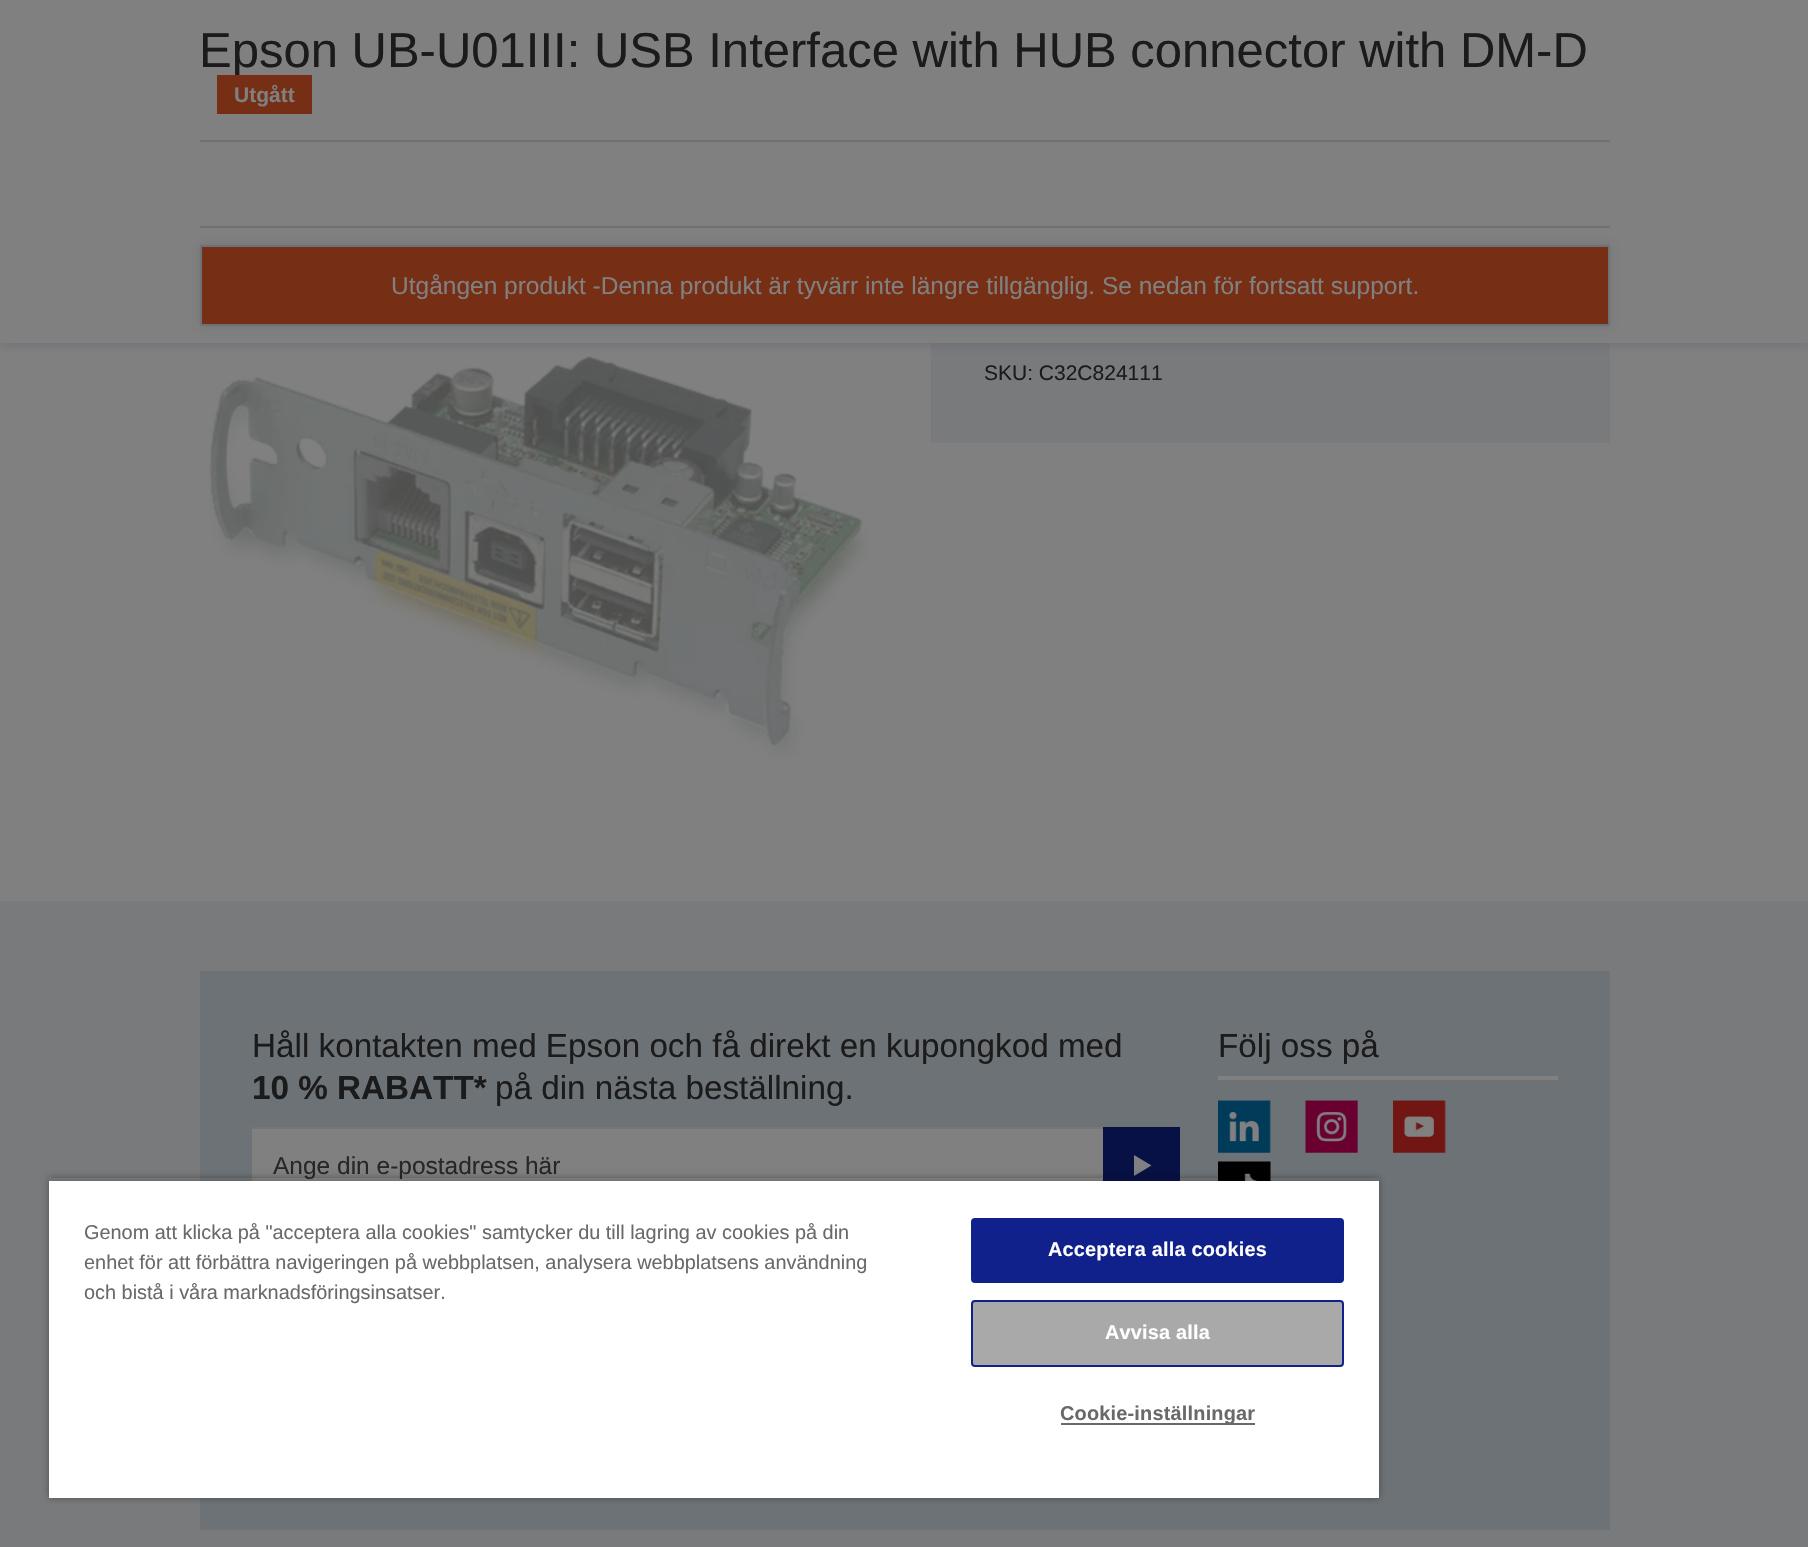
void draw(SkCanvas* canvas) {
    SkPaint paint;
    paint.setAntiAlias(true);
    auto face = [&](const char* family, int weight, float size, bool italic = false) {
        SkFontStyle style(weight, SkFontStyle::kNormal_Width,
            italic ? SkFontStyle::kItalic_Slant : SkFontStyle::kUpright_Slant);
        SkFont result(fontMgr->matchFamilyStyle(family, style), size);
        result.setSubpixel(true);
        return result;
    };
    auto write = [&](const char* s, float x, float y, const SkFont& font, SkColor color) {
        SkPaint ink(SkColor4f::FromColor(color));
        ink.setAntiAlias(true);
        canvas->drawString(s, x, y, font, ink);
    };
    auto writeSpaced = [&](const char* s, float x, float y, const SkFont& font, const SkPaint& ink, float letter, float word) {
        std::vector<SkGlyphID> glyphs(font.countText(s, strlen(s), SkTextEncoding::kUTF8));
        std::vector<float> xs(glyphs.size());
        font.textToGlyphs(s, strlen(s), SkTextEncoding::kUTF8, glyphs);
        font.getXPos(glyphs, xs, x);
        float extra = 0;
        for (size_t i = 0; i < glyphs.size(); i++) {
            xs[i] += extra;
            extra += letter + word * (glyphs[i] == font.unicharToGlyph(' '));
        }
        canvas->drawTextBlob(SkTextBlob::MakeFromPosHGlyphs(glyphs, xs, y, font), 0, 0, ink);
    };
    auto block = [&](float x, float y, float w, float h, SkColor color) {
        SkPaint ink(SkColor4f::FromColor(color));
        ink.setAntiAlias(true);
        canvas->drawRect(SkRect::MakeXYWH(x, y, w, h), ink);
    };
    auto paste = [&](const char* path, float x, float y, float w, float h) {
        auto image = SkImages::DeferredFromEncodedData(SkData::MakeFromFileName(path));
        canvas->drawImageRect(image, SkRect::MakeXYWH(x, y, w, h), SkSamplingOptions());
    };
    canvas->clear(SkColorSetRGB(128, 128, 128));
    paste("pic1.png", 209, 356, 659, 403);
    block(931, 343, 679, 100, SkColorSetRGB(121, 122, 123));
    paint.setColor(SkColorSetARGB(26, 8, 17, 70));
    paint.setMaskFilter(SkMaskFilter::MakeBlur(kNormal_SkBlurStyle, 4.5f));
    canvas->drawRect(SkRect::MakeXYWH(0, 4, 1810, 343), paint);
    paint.setMaskFilter(nullptr);
    block(0, 0, 1808, 343, SkColorSetRGB(128, 128, 128));
    auto kFont1 = face("Liberation Sans", 400, 49);
    write("Epson UB-U01III: USB Interface with HUB connector with DM-D", 199, 67, kFont1, SkColorSetRGB(27, 27, 27));
    block(217, 75, 95, 39, SkColorSetRGB(118, 46, 21));
    auto kFont2 = face("Liberation Sans", 700, 21);
    write("Utgått", 234, 102, kFont2, SkColorSetRGB(128, 128, 128));
    block(200, 140, 1410, 2, SkColorSetRGB(109, 114, 118));
    block(200, 226, 1410, 2, SkColorSetRGB(109, 114, 118));
    paint.setColor(SkColorSetARGB(26, 0, 0, 0));
    paint.setMaskFilter(SkMaskFilter::MakeBlur(kNormal_SkBlurStyle, 3.5f));
    canvas->drawRect(SkRect::MakeXYWH(200, 245, 1410, 81), paint);
    paint.setMaskFilter(nullptr);
    paint.setColor(SkColorSetRGB(118, 46, 21));
    canvas->drawRect(SkRect::MakeXYWH(201, 246, 1408, 79), paint);
    paint.setStyle(SkPaint::kStroke_Style);
    paint.setStrokeWidth(2);
    paint.setColor(SkColorSetRGB(109, 114, 118));
    canvas->drawRect(SkRect::MakeXYWH(201, 246, 1408, 79), paint);
    auto kFont3 = face("Liberation Sans", 400, 24.5f);
    write("Utgången produkt -Denna produkt är tyvärr inte längre tillgänglig. Se nedan för fortsatt support.", 391, 294, kFont3, SkColorSetRGB(128, 128, 128));
    auto kFont4 = face("Liberation Sans", 400, 21);
    write("SKU: C32C824111", 984, 380, kFont4, SkColorSetRGB(27, 27, 27));
    block(0, 901, 1808, 646, SkColorSetRGB(121, 122, 123));
    block(200, 971, 1410, 559, SkColorSetRGB(109, 114, 118));
    auto kFont5 = face("Liberation Sans", 400, 33.25f);
    write("Håll kontakten med Epson och få direkt en kupongkod med", 252, 1057, kFont5, SkColorSetRGB(27, 27, 27));
    auto kFont6 = face("Liberation Sans", 700, 33.25f);
    write("10 % RABATT*", 252, 1099, kFont6, SkColorSetRGB(27, 27, 27));
    write("på din nästa beställning.", 495, 1099, kFont5, SkColorSetRGB(27, 27, 27));
    block(252, 1129, 851, 52, SkColorSetRGB(128, 128, 128));
    block(252, 1127, 851, 2, SkColorSetRGB(118, 118, 118));
    write("Ange din e-postadress här", 273, 1174, kFont3, SkColorSetRGB(37, 39, 41));
    block(1103, 1127, 77, 54, SkColorSetRGB(8, 17, 70));
    paint.setStyle(SkPaint::kFill_Style);
    paint.setColor(SkColorSetRGB(128, 128, 128));
    canvas->drawPath(SkPathBuilder().moveTo(1134, 1176).lineTo(1134, 1155).lineTo(1151.5f, 1165.5f).close().detach(), paint);
    block(1218, 1076, 340, 4, SkColorSetRGB(128, 128, 128));
    write("Följ oss på", 1218, 1057, kFont5, SkColorSetRGB(27, 27, 27));
    paste("pic2.png", 1218, 1100, 53, 53);
    paste("pic3.png", 1305, 1100, 53, 53);
    paste("pic4.png", 1393, 1100, 53, 53);
    paste("pic5.png", 1218, 1161, 53, 20);
    canvas->save();
    canvas->clipPath(SkPathBuilder(SkPathFillType::kEvenOdd).moveTo(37, 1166).lineTo(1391, 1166).lineTo(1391, 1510).lineTo(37, 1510).close().moveTo(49, 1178).lineTo(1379, 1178).lineTo(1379, 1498).lineTo(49, 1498).close().detach(), true);
    paint.setColor(SkColorSetARGB(89, 0, 0, 0));
    paint.setMaskFilter(SkMaskFilter::MakeBlur(kNormal_SkBlurStyle, 3.5f));
    canvas->drawRect(SkRect::MakeXYWH(49, 1178, 1330, 320), paint);
    paint.setMaskFilter(nullptr);
    canvas->restore();
    canvas->save();
    canvas->clipRect(SkRect::MakeXYWH(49, 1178, 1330, 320));
    paint.setColor(SkColorSetARGB(51, 0, 0, 0));
    paint.setMaskFilter(SkMaskFilter::MakeBlur(kNormal_SkBlurStyle, 3.5f));
    canvas->drawRect(SkRect::MakeXYWH(49, 1181, 1330, 317), paint);
    paint.setMaskFilter(nullptr);
    canvas->restore();
    block(49, 1181, 1330, 317, SK_ColorWHITE);
    auto kFont7 = face("Liberation Sans", 400, 19.9f);
    write("Genom att klicka på \"acceptera alla cookies\" samtycker du till lagring av cookies på din", 84, 1239, kFont7, SkColorSetRGB(105, 105, 105));
    write("enhet för att förbättra navigeringen på webbplatsen, analysera webbplatsens användning", 84, 1269, kFont7, SkColorSetRGB(105, 105, 105));
    write("och bistå i våra marknadsföringsinsatser.", 84, 1299, kFont7, SkColorSetRGB(105, 105, 105));
    paint.setColor(SkColorSetRGB(16, 33, 139));
    canvas->drawRoundRect(SkRect::MakeXYWH(972, 1219, 371, 63), 3, 3, paint);
    paint.setStyle(SkPaint::kStroke_Style);
    canvas->drawRoundRect(SkRect::MakeXYWH(972, 1219, 371, 63), 3, 3, paint);
    auto kFont8 = face("Liberation Sans", 700, 19.9f);
    paint.setStyle(SkPaint::kFill_Style);
    paint.setColor(SK_ColorWHITE);
    writeSpaced("Acceptera alla cookies", 1048, 1256, kFont8, paint, 0.2f, 0);
    paint.setColor(SkColorSetRGB(169, 169, 169));
    canvas->drawRoundRect(SkRect::MakeXYWH(972, 1301, 371, 65), 3, 3, paint);
    paint.setStyle(SkPaint::kStroke_Style);
    paint.setColor(SkColorSetRGB(16, 33, 139));
    canvas->drawRoundRect(SkRect::MakeXYWH(972, 1301, 371, 65), 3, 3, paint);
    paint.setStyle(SkPaint::kFill_Style);
    paint.setColor(SK_ColorWHITE);
    writeSpaced("Avvisa alla", 1105, 1339, kFont8, paint, 0.2f, 0);
    block(1061, 1423, 194, 2, SkColorSetRGB(105, 105, 105));
    paint.setColor(SkColorSetRGB(105, 105, 105));
    writeSpaced("Cookie-inställningar", 1060, 1420, kFont8, paint, 0.2f, 0);
}
